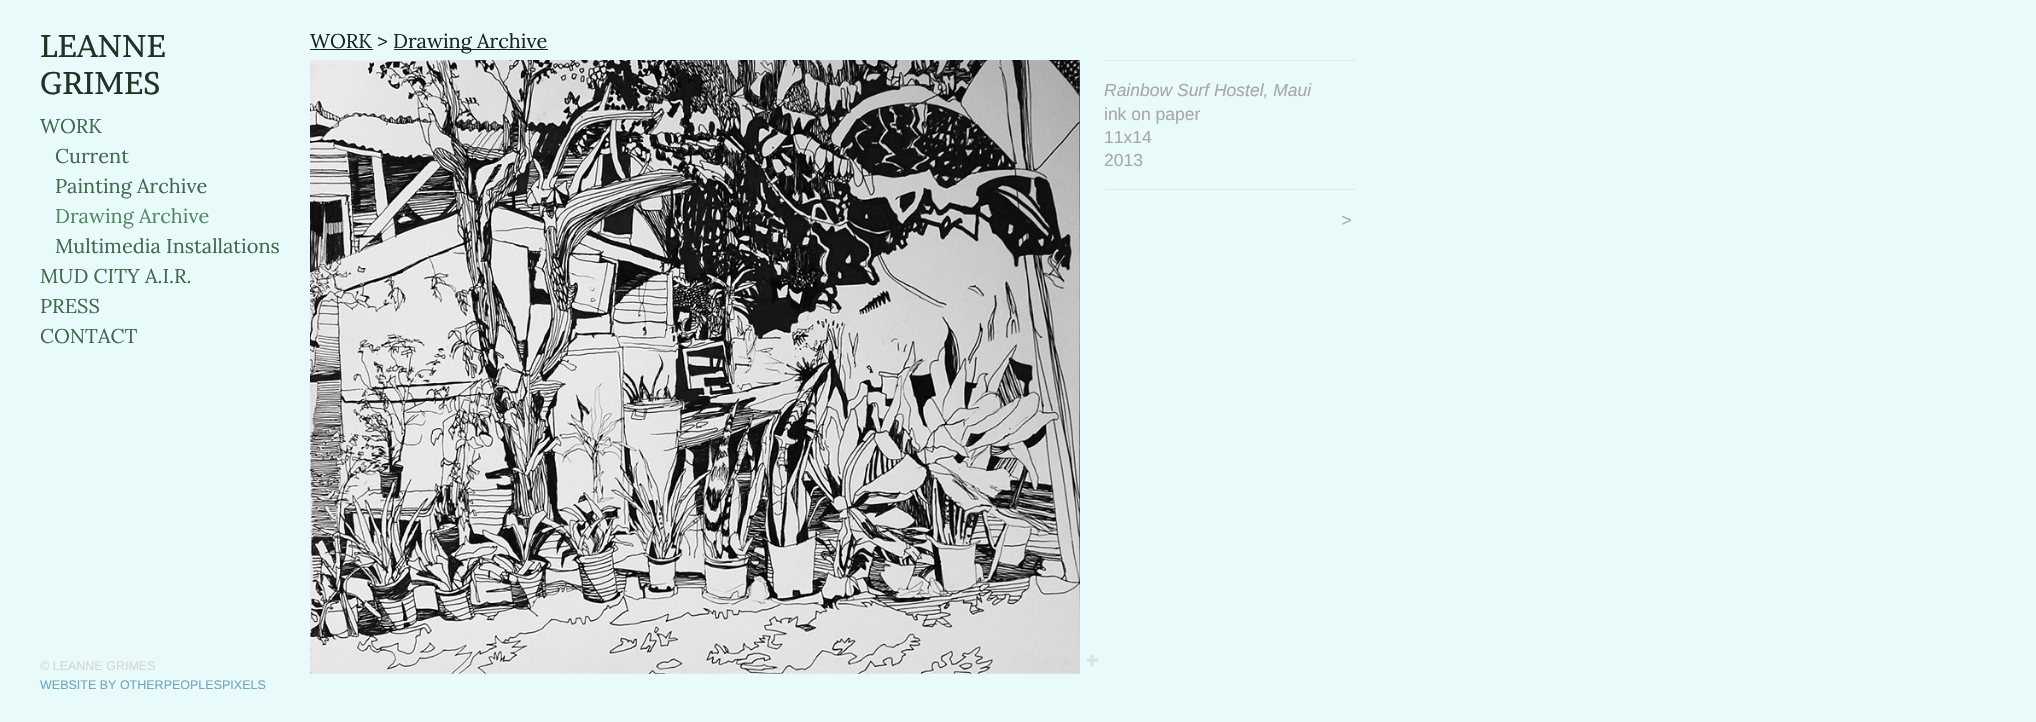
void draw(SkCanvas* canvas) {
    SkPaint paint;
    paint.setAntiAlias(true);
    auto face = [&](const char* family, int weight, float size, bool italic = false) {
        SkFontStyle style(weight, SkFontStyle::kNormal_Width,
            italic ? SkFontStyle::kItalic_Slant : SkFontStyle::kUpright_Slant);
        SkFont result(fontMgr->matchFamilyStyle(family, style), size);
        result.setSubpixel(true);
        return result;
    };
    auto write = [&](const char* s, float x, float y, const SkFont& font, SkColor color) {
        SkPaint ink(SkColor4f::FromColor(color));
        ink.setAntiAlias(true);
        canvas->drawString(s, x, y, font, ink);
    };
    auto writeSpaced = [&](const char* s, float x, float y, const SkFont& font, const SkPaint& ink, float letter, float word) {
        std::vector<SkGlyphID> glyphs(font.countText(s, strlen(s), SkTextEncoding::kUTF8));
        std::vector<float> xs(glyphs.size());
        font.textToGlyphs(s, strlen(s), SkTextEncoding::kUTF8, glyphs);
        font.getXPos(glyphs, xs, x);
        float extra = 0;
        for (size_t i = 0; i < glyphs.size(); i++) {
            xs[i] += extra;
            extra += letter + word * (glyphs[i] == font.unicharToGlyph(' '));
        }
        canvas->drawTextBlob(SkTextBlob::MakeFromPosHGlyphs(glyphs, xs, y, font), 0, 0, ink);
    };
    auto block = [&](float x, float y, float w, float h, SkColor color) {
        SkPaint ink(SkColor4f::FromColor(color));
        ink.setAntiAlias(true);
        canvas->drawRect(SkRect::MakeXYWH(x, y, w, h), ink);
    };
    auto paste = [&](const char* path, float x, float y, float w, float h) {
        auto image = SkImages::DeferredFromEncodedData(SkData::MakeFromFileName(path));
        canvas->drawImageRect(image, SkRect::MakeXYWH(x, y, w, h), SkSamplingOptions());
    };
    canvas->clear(SkColorSetRGB(233, 250, 251));
    auto kFont1 = face("Brawler", 400, 31.25f);
    write("LEANNE", 40, 57, kFont1, SkColorSetRGB(30, 52, 37));
    write("GRIMES", 40, 94, kFont1, SkColorSetRGB(30, 52, 37));
    auto kFont2 = face("Lora", 400, 20);
    write("WORK", 40, 133, kFont2, SkColorSetRGB(64, 104, 77));
    write("Current", 55, 163, kFont2, SkColorSetRGB(64, 104, 77));
    write("Painting Archive", 55, 193, kFont2, SkColorSetRGB(64, 104, 77));
    write("Drawing Archive", 55, 223, kFont2, SkColorSetRGB(83, 136, 100));
    write("Multimedia Installations", 55, 253, kFont2, SkColorSetRGB(64, 104, 77));
    write("MUD CITY A.I.R.", 40, 283, kFont2, SkColorSetRGB(64, 104, 77));
    write("PRESS", 40, 313, kFont2, SkColorSetRGB(64, 104, 77));
    write("CONTACT", 40, 343, kFont2, SkColorSetRGB(64, 104, 77));
    auto kFont3 = face("Liberation Sans", 400, 12.5f);
    write("© LEANNE GRIMES", 40, 670, kFont3, SkColorSetRGB(214, 214, 214));
    write("WEBSITE BY OTHERPEOPLESPIXELS", 40, 689, kFont3, SkColorSetRGB(112, 168, 192));
    write("WORK >", 310, 48, kFont2, SkColorSetRGB(25, 36, 30));
    block(310, 49, 63, 1, SkColorSetRGB(25, 36, 30));
    block(394, 49, 154, 1, SkColorSetRGB(25, 36, 30));
    write("Drawing Archive", 393, 48, kFont2, SkColorSetRGB(25, 36, 30));
    paste("pic1.png", 310, 60, 770, 614);
    paste("pic2.png", 1086, 654, 12, 13);
    block(1105, 60, 250, 1, SkColorSetRGB(220, 234, 234));
    auto kFont4 = face("Liberation Sans", 400, 17.5f, true);
    write("Rainbow Surf Hostel, Maui", 1104, 96, kFont4, SkColorSetRGB(168, 168, 168));
    auto kFont5 = face("Liberation Sans", 400, 17.5f);
    write("ink on paper", 1104, 120, kFont5, SkColorSetRGB(168, 168, 168));
    write("11x14", 1104, 143, kFont5, SkColorSetRGB(168, 168, 168));
    write("2013", 1104, 166, kFont5, SkColorSetRGB(168, 168, 168));
    block(1105, 189, 250, 1, SkColorSetRGB(220, 234, 234));
    paint.setColor(SkColorSetRGB(168, 168, 168));
    writeSpaced(">", 1341, 226, kFont4, paint, 1, 0);
}
